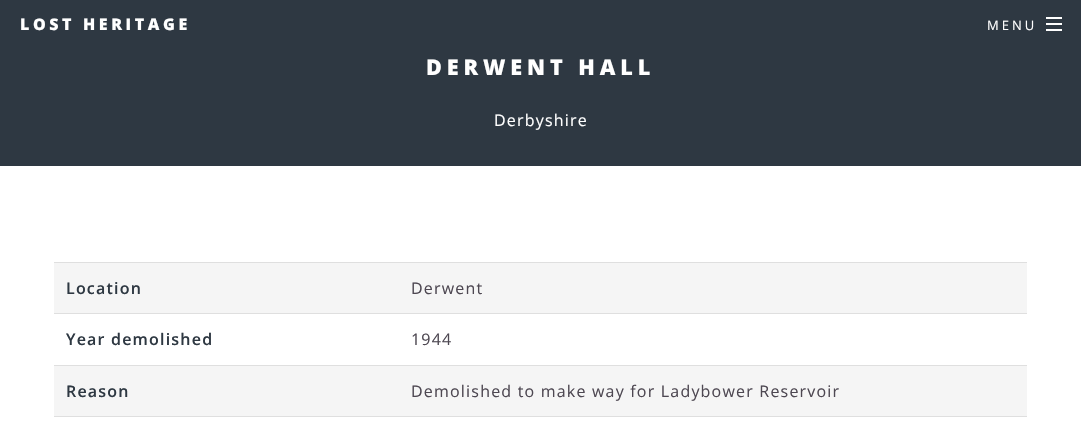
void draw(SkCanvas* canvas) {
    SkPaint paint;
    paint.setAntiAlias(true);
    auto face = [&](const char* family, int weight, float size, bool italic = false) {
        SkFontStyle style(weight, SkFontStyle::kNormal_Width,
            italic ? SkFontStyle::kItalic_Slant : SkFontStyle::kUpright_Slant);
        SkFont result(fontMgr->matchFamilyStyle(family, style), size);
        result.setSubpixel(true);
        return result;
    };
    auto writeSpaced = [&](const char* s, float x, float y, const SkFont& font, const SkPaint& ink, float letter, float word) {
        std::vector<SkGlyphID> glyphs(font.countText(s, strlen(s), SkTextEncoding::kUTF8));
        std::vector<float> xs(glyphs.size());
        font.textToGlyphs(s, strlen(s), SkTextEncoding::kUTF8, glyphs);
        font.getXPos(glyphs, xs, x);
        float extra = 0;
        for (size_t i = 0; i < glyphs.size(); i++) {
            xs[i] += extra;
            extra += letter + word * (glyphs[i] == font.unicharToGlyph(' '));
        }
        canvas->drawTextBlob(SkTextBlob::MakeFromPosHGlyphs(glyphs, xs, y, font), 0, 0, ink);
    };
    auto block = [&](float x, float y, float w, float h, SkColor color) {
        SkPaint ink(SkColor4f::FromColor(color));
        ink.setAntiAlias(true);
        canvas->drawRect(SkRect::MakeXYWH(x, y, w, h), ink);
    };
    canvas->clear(SkColorSetRGB(46, 56, 66));
    auto kFont1 = face("Open Sans", 800, 16);
    paint.setColor(SK_ColorWHITE);
    writeSpaced("LOST HERITAGE", 20, 30, kFont1, paint, 3.6f, 0);
    auto kFont2 = face("Open Sans", 400, 13);
    writeSpaced("MENU", 987, 30, kFont2, paint, 3, 0);
    block(1046, 17, 16, 2, SK_ColorWHITE);
    block(1046, 23, 16, 2, SK_ColorWHITE);
    block(1046, 29, 16, 2, SK_ColorWHITE);
    auto kFont3 = face("Open Sans", 800, 21.6f);
    writeSpaced("DERWENT HALL", 426, 75, kFont3, paint, 4.9f, 0);
    auto kFont4 = face("Open Sans", 400, 16);
    writeSpaced("Derbyshire", 494, 126, kFont4, paint, 1.2f, 0);
    block(0, 166, 1081, 257, SK_ColorWHITE);
    block(54, 263, 973, 50, SkColorSetRGB(245, 245, 245));
    block(54, 262, 973, 1, SkColorSetRGB(223, 223, 223));
    auto kFont5 = face("Open Sans", 600, 16);
    paint.setColor(SkColorSetRGB(46, 56, 66));
    writeSpaced("Location", 66, 294, kFont5, paint, 1.2f, 0);
    paint.setColor(SkColorSetRGB(78, 72, 82));
    writeSpaced("Derwent", 411, 294, kFont4, paint, 1.2f, 0);
    block(54, 313, 973, 1, SkColorSetRGB(223, 223, 223));
    paint.setColor(SkColorSetRGB(46, 56, 66));
    writeSpaced("Year demolished", 66, 345, kFont5, paint, 1.2f, 0);
    paint.setColor(SkColorSetRGB(78, 72, 82));
    writeSpaced("1944", 411, 345, kFont4, paint, 1.2f, 0);
    block(54, 366, 973, 50, SkColorSetRGB(245, 245, 245));
    block(54, 365, 973, 1, SkColorSetRGB(223, 223, 223));
    paint.setColor(SkColorSetRGB(46, 56, 66));
    writeSpaced("Reason", 66, 397, kFont5, paint, 1.2f, 0);
    paint.setColor(SkColorSetRGB(78, 72, 82));
    writeSpaced("Demolished to make way for Ladybower Reservoir", 411, 397, kFont4, paint, 1.2f, 0);
    block(54, 416, 973, 1, SkColorSetRGB(223, 223, 223));
}
